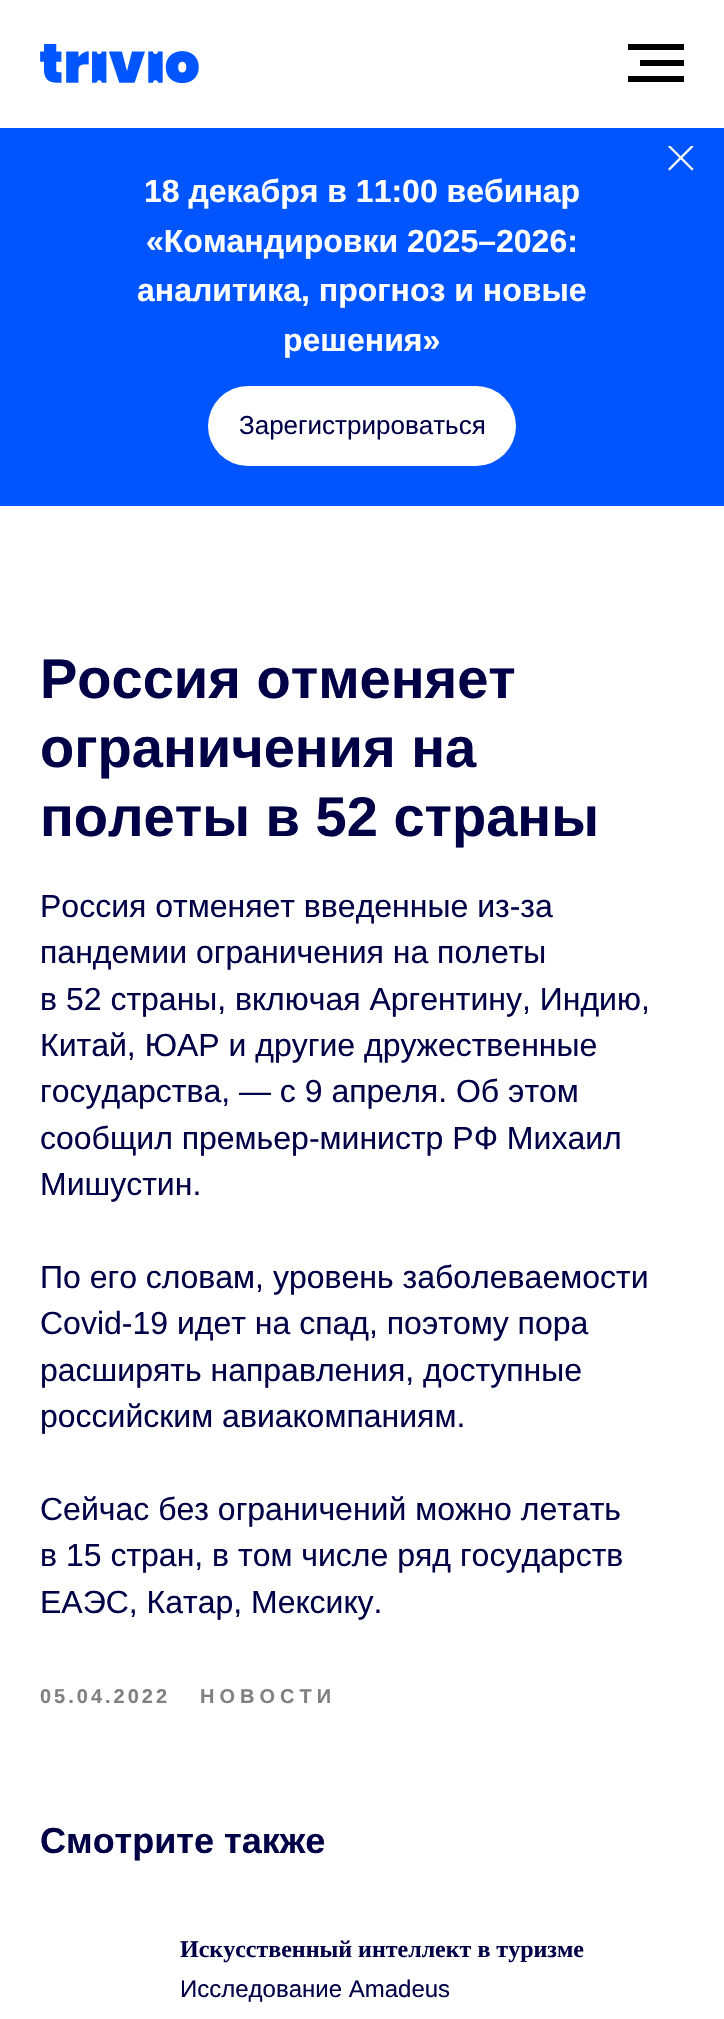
void draw(SkCanvas* canvas) {
    SkPaint paint;
    paint.setAntiAlias(true);
    auto face = [&](const char* family, int weight, float size, bool italic = false) {
        SkFontStyle style(weight, SkFontStyle::kNormal_Width,
            italic ? SkFontStyle::kItalic_Slant : SkFontStyle::kUpright_Slant);
        SkFont result(fontMgr->matchFamilyStyle(family, style), size);
        result.setSubpixel(true);
        return result;
    };
    auto write = [&](const char* s, float x, float y, const SkFont& font, SkColor color) {
        SkPaint ink(SkColor4f::FromColor(color));
        ink.setAntiAlias(true);
        canvas->drawString(s, x, y, font, ink);
    };
    auto writeSpaced = [&](const char* s, float x, float y, const SkFont& font, const SkPaint& ink, float letter, float word) {
        std::vector<SkGlyphID> glyphs(font.countText(s, strlen(s), SkTextEncoding::kUTF8));
        std::vector<float> xs(glyphs.size());
        font.textToGlyphs(s, strlen(s), SkTextEncoding::kUTF8, glyphs);
        font.getXPos(glyphs, xs, x);
        float extra = 0;
        for (size_t i = 0; i < glyphs.size(); i++) {
            xs[i] += extra;
            extra += letter + word * (glyphs[i] == font.unicharToGlyph(' '));
        }
        canvas->drawTextBlob(SkTextBlob::MakeFromPosHGlyphs(glyphs, xs, y, font), 0, 0, ink);
    };
    auto block = [&](float x, float y, float w, float h, SkColor color) {
        SkPaint ink(SkColor4f::FromColor(color));
        ink.setAntiAlias(true);
        canvas->drawRect(SkRect::MakeXYWH(x, y, w, h), ink);
    };
    auto card = [&](float x, float y, float w, float h, float radius, SkColor color) {
        SkPaint ink(SkColor4f::FromColor(color));
        ink.setAntiAlias(true);
        canvas->drawRoundRect(SkRect::MakeXYWH(x, y, w, h), radius, radius, ink);
    };
    auto paste = [&](const char* path, float x, float y, float w, float h) {
        auto image = SkImages::DeferredFromEncodedData(SkData::MakeFromFileName(path));
        canvas->drawImageRect(image, SkRect::MakeXYWH(x, y, w, h), SkSamplingOptions());
    };
    canvas->clear(SK_ColorWHITE);
    paste("pic1.png", 40, 44, 159, 40);
    block(628, 44, 56, 6, SK_ColorBLACK);
    block(640, 60, 44, 6, SK_ColorBLACK);
    block(628, 76, 56, 6, SK_ColorBLACK);
    block(0, 128, 724, 378, SkColorSetRGB(0, 85, 254));
    paste("pic2.png", 668, 146, 26, 25);
    auto kFont1 = face("Liberation Sans", 700, 32);
    write("18 декабря в 11:00 вебинар", 144, 202, kFont1, SK_ColorWHITE);
    write("«Командировки 2025–2026:", 146, 252, kFont1, SK_ColorWHITE);
    write("аналитика, прогноз и новые", 137, 301, kFont1, SK_ColorWHITE);
    write("решения»", 283, 351, kFont1, SK_ColorWHITE);
    card(208, 386, 308, 80, 40, SK_ColorWHITE);
    auto kFont2 = face("Liberation Sans", 400, 26);
    write("Зарегистрироваться", 239, 434, kFont2, SkColorSetRGB(0, 0, 71));
    auto kFont3 = face("Liberation Sans", 700, 56);
    write("Россия отменяет", 40, 698, kFont3, SkColorSetRGB(0, 0, 71));
    write("ограничения на", 40, 767, kFont3, SkColorSetRGB(0, 0, 71));
    write("полеты в 52 страны", 40, 836, kFont3, SkColorSetRGB(0, 0, 71));
    auto kFont4 = face("Liberation Sans", 400, 32);
    write("Россия отменяет введенные из-за", 40, 917, kFont4, SkColorSetRGB(0, 0, 71));
    write("пандемии ограничения на полеты", 40, 963, kFont4, SkColorSetRGB(0, 0, 71));
    write("в 52 страны, включая Аргентину, Индию,", 40, 1010, kFont4, SkColorSetRGB(0, 0, 71));
    write("Китай, ЮАР и другие дружественные", 40, 1056, kFont4, SkColorSetRGB(0, 0, 71));
    write("государства, — с 9 апреля. Об этом", 40, 1102, kFont4, SkColorSetRGB(0, 0, 71));
    write("сообщил премьер-министр РФ Михаил", 40, 1149, kFont4, SkColorSetRGB(0, 0, 71));
    write("Мишустин.", 40, 1195, kFont4, SkColorSetRGB(0, 0, 71));
    write("По его словам, уровень заболеваемости", 40, 1288, kFont4, SkColorSetRGB(0, 0, 71));
    write("Covid-19 идет на спад, поэтому пора", 40, 1334, kFont4, SkColorSetRGB(0, 0, 71));
    write("расширять направления, доступные", 40, 1381, kFont4, SkColorSetRGB(0, 0, 71));
    write("российским авиакомпаниям.", 40, 1427, kFont4, SkColorSetRGB(0, 0, 71));
    write("Сейчас без ограничений можно летать", 40, 1520, kFont4, SkColorSetRGB(0, 0, 71));
    write("в 15 стран, в том числе ряд государств", 40, 1566, kFont4, SkColorSetRGB(0, 0, 71));
    write("ЕАЭС, Катар, Мексику.", 40, 1613, kFont4, SkColorSetRGB(0, 0, 71));
    auto kFont5 = face("Liberation Sans", 700, 20);
    paint.setColor(SkColorSetRGB(128, 128, 128));
    writeSpaced("05.04.2022", 40, 1703, kFont5, paint, 3, 0);
    writeSpaced("НОВОСТИ", 200, 1703, kFont5, paint, 5, 0);
    auto kFont6 = face("Liberation Sans", 700, 36);
    write("Смотрите также", 40, 1853, kFont6, SkColorSetRGB(0, 0, 71));
    auto kFont7 = face("Liberation Serif", 700, 24);
    write("Искусственный интеллект в туризме", 180, 1957, kFont7, SkColorSetRGB(0, 0, 71));
    auto kFont8 = face("Liberation Sans", 400, 24);
    write("Исследование Amadeus", 180, 1997, kFont8, SkColorSetRGB(0, 0, 71));
}
